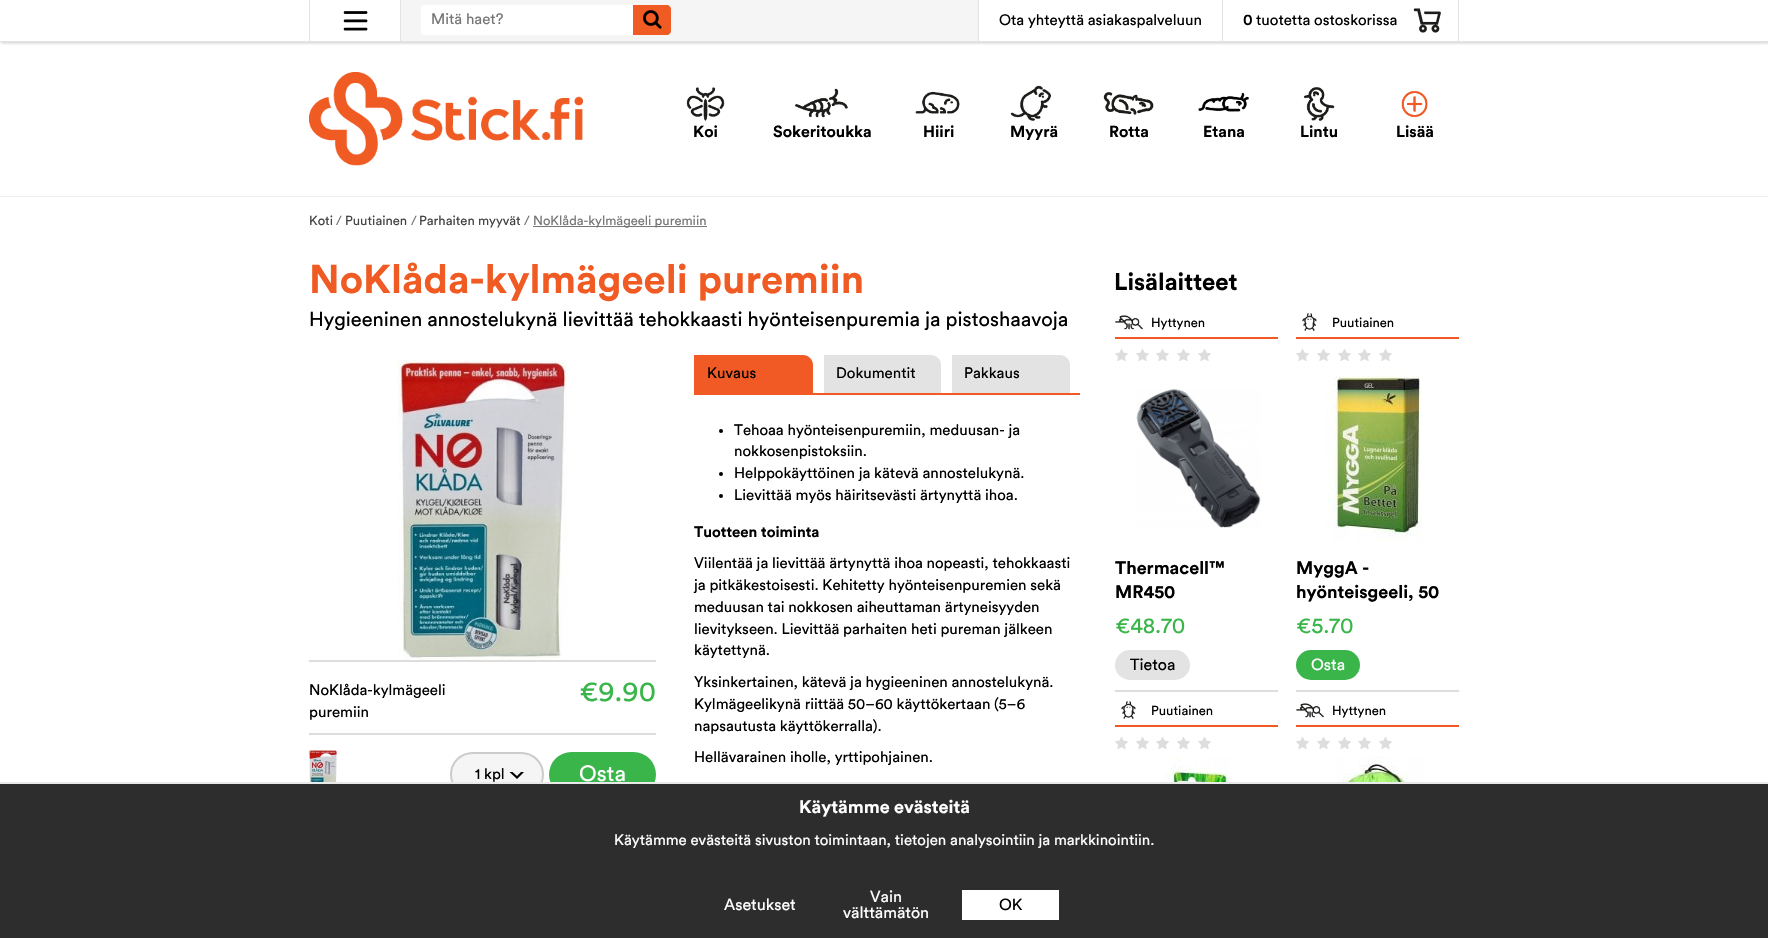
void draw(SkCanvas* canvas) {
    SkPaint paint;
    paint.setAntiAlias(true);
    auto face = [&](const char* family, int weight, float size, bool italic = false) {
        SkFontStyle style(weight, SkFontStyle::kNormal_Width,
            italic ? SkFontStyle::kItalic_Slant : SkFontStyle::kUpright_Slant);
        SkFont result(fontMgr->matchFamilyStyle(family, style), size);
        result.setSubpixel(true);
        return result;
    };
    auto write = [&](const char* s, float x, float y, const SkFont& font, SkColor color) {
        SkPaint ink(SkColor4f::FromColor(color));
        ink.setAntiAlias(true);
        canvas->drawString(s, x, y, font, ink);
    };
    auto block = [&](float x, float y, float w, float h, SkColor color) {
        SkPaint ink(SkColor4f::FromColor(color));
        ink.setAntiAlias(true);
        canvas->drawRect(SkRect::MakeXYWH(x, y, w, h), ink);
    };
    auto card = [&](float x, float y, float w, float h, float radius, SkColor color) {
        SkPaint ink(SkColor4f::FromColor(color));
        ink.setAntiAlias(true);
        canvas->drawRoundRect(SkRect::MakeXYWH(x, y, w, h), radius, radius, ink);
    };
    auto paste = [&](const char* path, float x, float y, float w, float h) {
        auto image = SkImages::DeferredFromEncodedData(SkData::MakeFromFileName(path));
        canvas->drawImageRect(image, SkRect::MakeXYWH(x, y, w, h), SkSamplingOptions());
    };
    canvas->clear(SK_ColorWHITE);
    canvas->save();
    canvas->clipRect(SkRect::MakeXYWH(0, 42, 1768, 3));
    paint.setColor(SkColorSetARGB(51, 0, 0, 0));
    paint.setMaskFilter(SkMaskFilter::MakeBlur(kNormal_SkBlurStyle, 1.5f));
    canvas->drawRect(SkRect::MakeXYWH(1, 1, 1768, 42), paint);
    paint.setMaskFilter(nullptr);
    canvas->restore();
    block(0, 41, 1768, 1, SkColorSetRGB(227, 227, 227));
    block(309, 0, 1, 41, SkColorSetRGB(227, 227, 227));
    paste("pic1.png", 343, 11, 25, 20);
    block(401, 0, 577, 41, SkColorSetRGB(245, 245, 245));
    block(978, 0, 1, 41, SkColorSetRGB(227, 227, 227));
    block(400, 0, 1, 41, SkColorSetRGB(227, 227, 227));
    paint.setColor(SK_ColorWHITE);
    canvas->drawPath(SkPathBuilder().moveTo(425, 5).lineTo(633, 5).lineTo(633, 35).lineTo(425, 35).cubicTo(423, 35, 421, 33, 421, 31).lineTo(421, 9).cubicTo(421, 7, 423, 5, 425, 5).close().detach(), paint);
    auto kFont1 = face("Circular", 400, 15);
    write("Mitä haet?", 431, 24, kFont1, SkColorSetRGB(119, 119, 119));
    paint.setColor(SkColorSetRGB(240, 90, 35));
    canvas->drawPath(SkPathBuilder().moveTo(633, 5).lineTo(667, 5).cubicTo(669, 5, 671, 7, 671, 9).lineTo(671, 31).cubicTo(671, 33, 669, 35, 667, 35).lineTo(633, 35).close().detach(), paint);
    paste("pic2.png", 643, 10, 19, 19);
    block(1458, 0, 1, 41, SkColorSetRGB(227, 227, 227));
    block(1222, 0, 1, 41, SkColorSetRGB(227, 227, 227));
    write("Ota yhteyttä asiakaspalveluun", 999, 25, kFont1, SK_ColorBLACK);
    auto kFont2 = face("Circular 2", 700, 15);
    write("0", 1243, 25, kFont2, SK_ColorBLACK);
    write("tuotetta ostoskorissa", 1256, 25, kFont1, SK_ColorBLACK);
    paste("pic3.png", 1413, 8, 28, 25);
    block(0, 196, 1768, 1, SkColorSetRGB(238, 238, 238));
    paste("pic4.png", 309, 72, 274, 94);
    paste("pic5.png", 686, 87, 39, 34);
    auto kFont3 = face("Circular", 700, 16);
    write("Koi", 693, 137, kFont3, SK_ColorBLACK);
    paste("pic6.png", 795, 88, 53, 30);
    write("Sokeritoukka", 773, 137, kFont3, SK_ColorBLACK);
    paste("pic7.png", 915, 91, 45, 23);
    write("Hiiri", 923, 137, kFont3, SK_ColorBLACK);
    paste("pic8.png", 1010, 85, 42, 36);
    write("Myyrä", 1010, 137, kFont3, SK_ColorBLACK);
    paste("pic9.png", 1103, 92, 51, 23);
    write("Rotta", 1109, 137, kFont3, SK_ColorBLACK);
    paste("pic10.png", 1198, 92, 51, 20);
    write("Etana", 1203, 137, kFont3, SK_ColorBLACK);
    paste("pic11.png", 1303, 87, 32, 34);
    write("Lintu", 1300, 137, kFont3, SK_ColorBLACK);
    paste("pic12.png", 1401, 91, 27, 26);
    write("Lisää", 1396, 137, kFont3, SK_ColorBLACK);
    auto kFont4 = face("Circular", 400, 13);
    write("Koti", 309, 225, kFont4, SkColorSetRGB(68, 68, 68));
    write("/", 336, 225, kFont4, SkColorSetRGB(119, 119, 119));
    write("Puutiainen", 345, 225, kFont4, SkColorSetRGB(68, 68, 68));
    write("/", 411, 225, kFont4, SkColorSetRGB(119, 119, 119));
    write("Parhaiten myyvät", 419, 225, kFont4, SkColorSetRGB(68, 68, 68));
    write("/", 524, 225, kFont4, SkColorSetRGB(119, 119, 119));
    block(533, 226, 174, 1, SkColorSetRGB(119, 119, 119));
    write("NoKlåda-kylmägeeli puremiin", 533, 225, kFont4, SkColorSetRGB(119, 119, 119));
    auto kFont5 = face("Circular", 700, 40);
    write("NoKlåda-kylmägeeli puremiin", 309, 293, kFont5, SkColorSetRGB(240, 90, 35));
    auto kFont6 = face("Circular", 400, 20);
    write("Hygieeninen annostelukynä lievittää tehokkaasti hyönteisenpuremia ja pistoshaavoja", 309, 326, kFont6, SK_ColorBLACK);
    paste("pic13.png", 398, 360, 169, 300);
    block(309, 660, 347, 2, SkColorSetRGB(221, 221, 221));
    block(309, 733, 347, 2, SkColorSetRGB(221, 221, 221));
    write("NoKlåda-kylmägeeli", 309, 695, kFont1, SK_ColorBLACK);
    write("puremiin", 309, 717, kFont1, SK_ColorBLACK);
    auto kFont7 = face("Circular", 400, 28);
    write("€9.90", 579, 701, kFont7, SkColorSetRGB(57, 181, 74));
    paste("pic14.png", 309, 750, 28, 32);
    paint.setColor(SkColorSetRGB(245, 245, 245));
    canvas->drawRoundRect(SkRect::MakeXYWH(451, 753, 92, 43), 21.5f, 21.5f, paint);
    paint.setStyle(SkPaint::kStroke_Style);
    paint.setStrokeWidth(2);
    paint.setColor(SkColorSetRGB(204, 204, 204));
    canvas->drawRoundRect(SkRect::MakeXYWH(451, 753, 92, 43), 21.5f, 21.5f, paint);
    write("1 kpl", 475, 779, kFont1, SK_ColorBLACK);
    paint.setStyle(SkPaint::kFill_Style);
    paint.setColor(SK_ColorBLACK);
    canvas->drawPath(SkPathBuilder().moveTo(524, 772).lineTo(517, 779).lineTo(517, 776).lineTo(521, 772).close().moveTo(517, 779).lineTo(509.5f, 772).lineTo(512.5f, 772).lineTo(517, 776).close().detach(), paint);
    card(549, 752, 107, 45, 22.5f, SkColorSetRGB(57, 181, 74));
    auto kFont8 = face("Circular", 400, 22);
    write("Osta", 579, 781, kFont8, SK_ColorWHITE);
    block(694, 393, 386, 2, SkColorSetRGB(241, 90, 36));
    paint.setColor(SkColorSetRGB(241, 90, 36));
    canvas->drawPath(SkPathBuilder().moveTo(694, 355).lineTo(803, 355).cubicTo(808.5f, 355, 813, 359.5f, 813, 365).lineTo(813, 393).lineTo(694, 393).close().detach(), paint);
    write("Kuvaus", 707, 378, kFont1, SK_ColorBLACK);
    paint.setColor(SkColorSetRGB(227, 227, 227));
    canvas->drawPath(SkPathBuilder().moveTo(823, 355).lineTo(931, 355).cubicTo(936.5f, 355, 941, 359.5f, 941, 365).lineTo(941, 393).lineTo(823, 393).close().detach(), paint);
    block(823, 355, 1, 38, SK_ColorWHITE);
    write("Dokumentit", 836, 378, kFont1, SK_ColorBLACK);
    canvas->drawPath(SkPathBuilder().moveTo(951, 355).lineTo(1060, 355).cubicTo(1065.5f, 355, 1070, 359.5f, 1070, 365).lineTo(1070, 393).lineTo(951, 393).close().detach(), paint);
    block(951, 355, 1, 38, SK_ColorWHITE);
    write("Pakkaus", 964, 378, kFont1, SK_ColorBLACK);
    paint.setColor(SK_ColorBLACK);
    canvas->drawCircle(721, 431, 2, paint);
    write("Tehoaa hyönteisenpuremiin, meduusan- ja", 734, 435, kFont1, SK_ColorBLACK);
    write("nokkosenpistoksiin.", 734, 456, kFont1, SK_ColorBLACK);
    canvas->drawCircle(721, 474, 2, paint);
    write("Helppokäyttöinen ja kätevä annostelukynä.", 734, 478, kFont1, SK_ColorBLACK);
    canvas->drawCircle(721, 496, 2, paint);
    write("Lievittää myös häiritsevästi ärtynyttä ihoa.", 734, 500, kFont1, SK_ColorBLACK);
    auto kFont9 = face("Circular", 700, 15);
    write("Tuotteen toiminta", 694, 537, kFont9, SK_ColorBLACK);
    write("Viilentää ja lievittää ärtynyttä ihoa nopeasti, tehokkaasti", 694, 568, kFont1, SK_ColorBLACK);
    write("ja pitkäkestoisesti. Kehitetty hyönteisenpuremien sekä", 694, 590, kFont1, SK_ColorBLACK);
    write("meduusan tai nokkosen aiheuttaman ärtyneisyyden", 694, 612, kFont1, SK_ColorBLACK);
    write("lievitykseen. Lievittää parhaiten heti pureman jälkeen", 694, 634, kFont1, SK_ColorBLACK);
    write("käytettynä.", 694, 655, kFont1, SK_ColorBLACK);
    write("Yksinkertainen, kätevä ja hygieeninen annostelukynä.", 694, 687, kFont1, SK_ColorBLACK);
    write("Kylmägeelikynä riittää 50–60 käyttökertaan (5–6", 694, 709, kFont1, SK_ColorBLACK);
    write("napsautusta käyttökerralla).", 694, 731, kFont1, SK_ColorBLACK);
    write("Hellävarainen iholle, yrttipohjainen.", 694, 762, kFont1, SK_ColorBLACK);
    auto kFont10 = face("Circular", 700, 24);
    write("Lisälaitteet", 1114, 290, kFont10, SK_ColorBLACK);
    block(1115, 690, 163, 2, SkColorSetRGB(221, 221, 221));
    block(1115, 337, 163, 2, SkColorSetRGB(241, 90, 36));
    paste("pic15.png", 1115, 315, 28, 15);
    write("Hyttynen", 1151, 327, kFont4, SK_ColorBLACK);
    paste("pic16.png", 1115, 349, 13, 12);
    paste("pic16.png", 1136, 349, 13, 12);
    paste("pic16.png", 1156, 349, 13, 12);
    paste("pic16.png", 1177, 349, 13, 12);
    paste("pic16.png", 1198, 349, 13, 12);
    paste("pic17.png", 1136, 389, 125, 139);
    auto kFont11 = face("Circular", 700, 18);
    write("Thermacell™", 1115, 574, kFont11, SK_ColorBLACK);
    write("MR450", 1115, 598, kFont11, SK_ColorBLACK);
    write("€48.70", 1115, 633, kFont8, SkColorSetRGB(57, 181, 74));
    card(1115, 650, 75, 30, 15, SkColorSetRGB(227, 227, 227));
    auto kFont12 = face("Circular", 400, 16);
    write("Tietoa", 1130, 670, kFont12, SK_ColorBLACK);
    block(1296, 690, 163, 2, SkColorSetRGB(221, 221, 221));
    block(1296, 337, 163, 2, SkColorSetRGB(241, 90, 36));
    paste("pic18.png", 1302, 313, 15, 18);
    write("Puutiainen", 1332, 327, kFont4, SK_ColorBLACK);
    paste("pic16.png", 1296, 349, 13, 12);
    paste("pic16.png", 1317, 349, 13, 12);
    paste("pic16.png", 1338, 349, 13, 12);
    paste("pic16.png", 1358, 349, 13, 12);
    paste("pic16.png", 1379, 349, 13, 12);
    paste("pic19.png", 1325, 372, 97, 170);
    write("MyggA -", 1296, 574, kFont11, SK_ColorBLACK);
    write("hyönteisgeeli, 50", 1296, 598, kFont11, SK_ColorBLACK);
    write("€5.70", 1296, 633, kFont8, SkColorSetRGB(57, 181, 74));
    card(1296, 650, 64, 30, 15, SkColorSetRGB(57, 181, 74));
    write("Osta", 1311, 670, kFont12, SK_ColorWHITE);
    block(1115, 725, 163, 2, SkColorSetRGB(241, 90, 36));
    paste("pic20.png", 1121, 701, 15, 18);
    write("Puutiainen", 1151, 715, kFont4, SK_ColorBLACK);
    paste("pic16.png", 1115, 737, 13, 12);
    paste("pic16.png", 1136, 737, 13, 12);
    paste("pic16.png", 1156, 737, 13, 12);
    paste("pic16.png", 1177, 737, 13, 12);
    paste("pic16.png", 1198, 737, 13, 12);
    paste("pic21.png", 1149, 757, 81, 25);
    block(1296, 725, 163, 2, SkColorSetRGB(241, 90, 36));
    paste("pic22.png", 1296, 703, 28, 15);
    write("Hyttynen", 1332, 715, kFont4, SK_ColorBLACK);
    paste("pic16.png", 1296, 737, 13, 12);
    paste("pic16.png", 1317, 737, 13, 12);
    paste("pic16.png", 1338, 737, 13, 12);
    paste("pic16.png", 1358, 737, 13, 12);
    paste("pic16.png", 1379, 737, 13, 12);
    paste("pic23.png", 1327, 757, 96, 25);
    block(0, 784, 1768, 154, SkColorSetRGB(45, 45, 45));
    block(0, 782, 1768, 2, SkColorSetRGB(233, 233, 233));
    write("Käytämme evästeitä", 799, 813, kFont11, SK_ColorWHITE);
    write("Käytämme evästeitä sivuston toimintaan, tietojen analysointiin ja markkinointiin.", 614, 845, kFont1, SK_ColorWHITE);
    write("Asetukset", 724, 910, kFont12, SK_ColorWHITE);
    write("Vain", 870, 902, kFont12, SK_ColorWHITE);
    write("välttämätön", 843, 918, kFont12, SK_ColorWHITE);
    block(962, 890, 97, 30, SK_ColorWHITE);
    write("OK", 999, 910, kFont12, SK_ColorBLACK);
}
